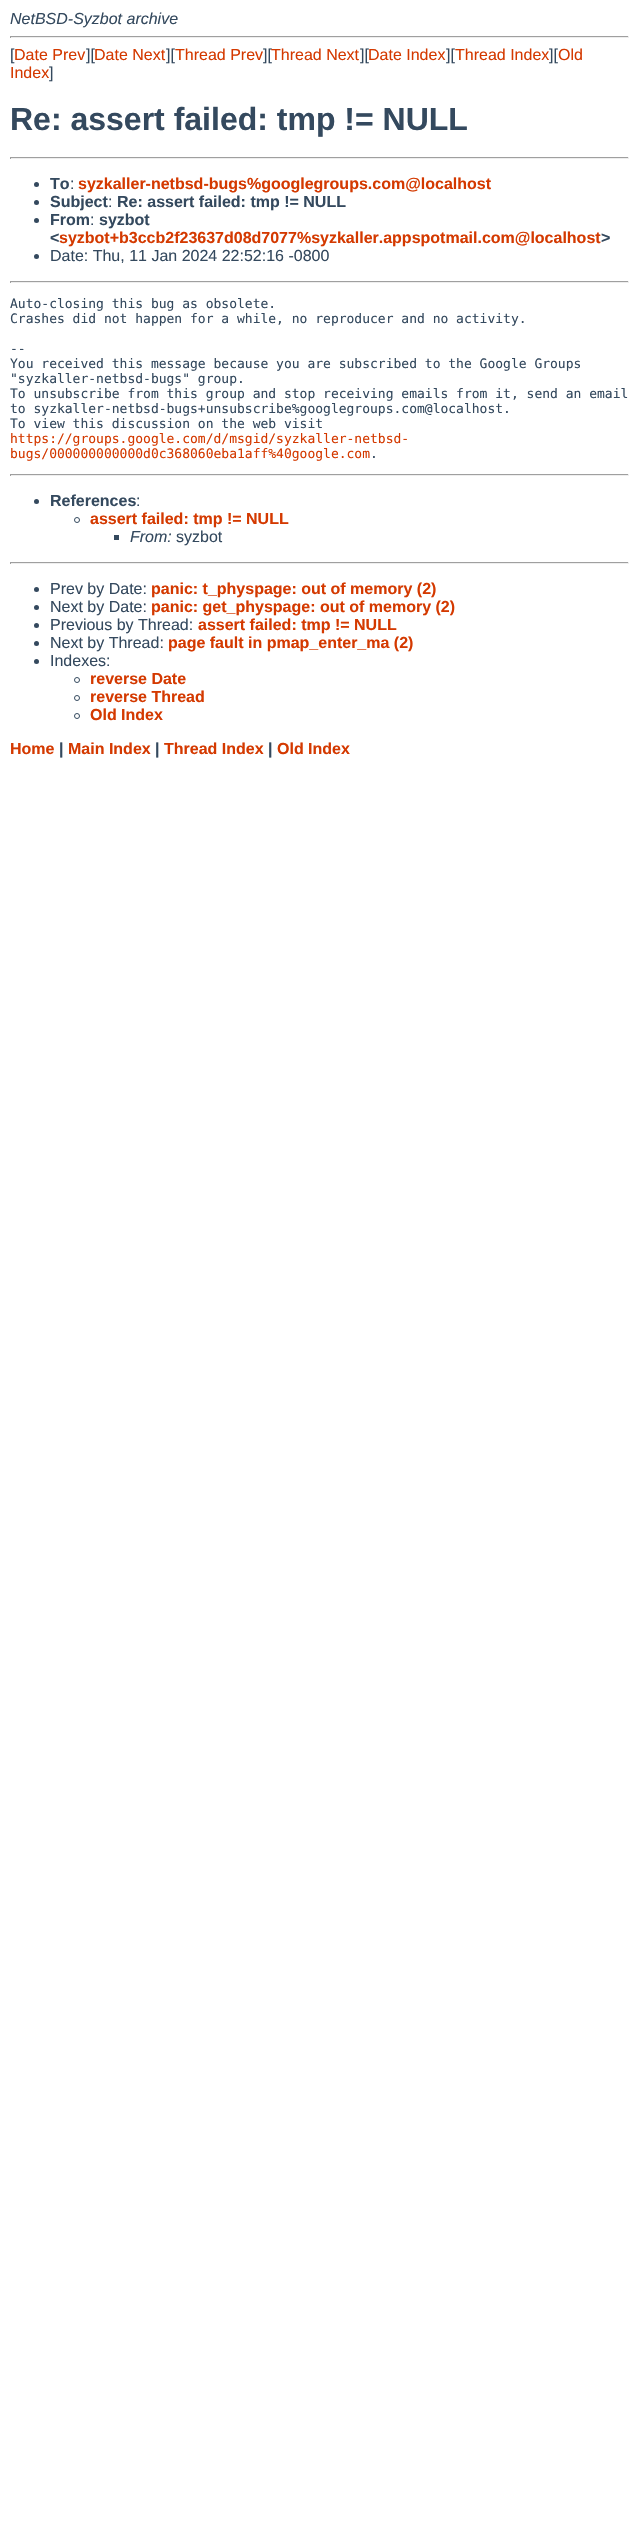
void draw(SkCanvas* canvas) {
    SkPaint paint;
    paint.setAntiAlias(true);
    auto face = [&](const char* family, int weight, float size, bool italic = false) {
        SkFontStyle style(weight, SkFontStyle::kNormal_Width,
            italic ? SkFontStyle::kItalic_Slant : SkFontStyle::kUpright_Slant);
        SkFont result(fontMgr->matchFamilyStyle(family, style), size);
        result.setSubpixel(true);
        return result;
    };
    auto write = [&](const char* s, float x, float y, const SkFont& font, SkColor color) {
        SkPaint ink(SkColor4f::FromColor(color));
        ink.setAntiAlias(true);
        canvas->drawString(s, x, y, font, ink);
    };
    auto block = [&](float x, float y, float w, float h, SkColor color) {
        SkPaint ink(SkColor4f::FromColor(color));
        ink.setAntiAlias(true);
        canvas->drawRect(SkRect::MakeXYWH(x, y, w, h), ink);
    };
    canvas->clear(SK_ColorWHITE);
    auto kFont1 = face("Liberation Sans", 400, 16, true);
    write("NetBSD-Syzbot archive", 10, 24, kFont1, SkColorSetRGB(52, 73, 94));
    block(10, 36, 619, 1, SkColorSetRGB(159, 159, 159));
    block(628, 36, 1, 2, SkColorSetRGB(238, 238, 238));
    block(10, 37, 619, 1, SkColorSetRGB(238, 238, 238));
    block(10, 36, 1, 2, SkColorSetRGB(159, 159, 159));
    auto kFont2 = face("Liberation Sans", 400, 16);
    write("[", 10, 60, kFont2, SkColorSetRGB(52, 73, 94));
    write("Date Prev", 14, 60, kFont2, SkColorSetRGB(212, 57, 0));
    write("][", 86, 60, kFont2, SkColorSetRGB(52, 73, 94));
    write("Date Next", 94, 60, kFont2, SkColorSetRGB(212, 57, 0));
    write("][", 166, 60, kFont2, SkColorSetRGB(52, 73, 94));
    write("Thread Prev", 175, 60, kFont2, SkColorSetRGB(212, 57, 0));
    write("][", 263, 60, kFont2, SkColorSetRGB(52, 73, 94));
    write("Thread Next", 271, 60, kFont2, SkColorSetRGB(212, 57, 0));
    write("][", 360, 60, kFont2, SkColorSetRGB(52, 73, 94));
    write("Date Index", 368, 60, kFont2, SkColorSetRGB(212, 57, 0));
    write("][", 446, 60, kFont2, SkColorSetRGB(52, 73, 94));
    write("Thread Index", 455, 60, kFont2, SkColorSetRGB(212, 57, 0));
    write("][", 549, 60, kFont2, SkColorSetRGB(52, 73, 94));
    write("Old", 558, 60, kFont2, SkColorSetRGB(212, 57, 0));
    write("Index", 10, 78, kFont2, SkColorSetRGB(212, 57, 0));
    write("]", 49, 78, kFont2, SkColorSetRGB(52, 73, 94));
    auto kFont3 = face("Liberation Sans", 700, 32);
    write("Re: assert failed: tmp != NULL", 10, 130, kFont3, SkColorSetRGB(52, 73, 94));
    block(10, 157, 619, 1, SkColorSetRGB(159, 159, 159));
    block(628, 157, 1, 2, SkColorSetRGB(238, 238, 238));
    block(10, 158, 619, 1, SkColorSetRGB(238, 238, 238));
    block(10, 157, 1, 2, SkColorSetRGB(159, 159, 159));
    paint.setColor(SkColorSetRGB(52, 73, 94));
    canvas->drawCircle(36.5f, 184.5f, 2.5f, paint);
    auto kFont4 = face("Liberation Sans", 700, 16);
    write("To", 50, 189, kFont4, SkColorSetRGB(52, 73, 94));
    write(":", 70, 189, kFont2, SkColorSetRGB(52, 73, 94));
    write("syzkaller-netbsd-bugs%googlegroups.com@localhost", 78, 189, kFont4, SkColorSetRGB(212, 57, 0));
    canvas->drawCircle(36.5f, 202.5f, 2.5f, paint);
    write("Subject", 50, 207, kFont4, SkColorSetRGB(52, 73, 94));
    write(":", 108, 207, kFont2, SkColorSetRGB(52, 73, 94));
    write("Re: assert failed: tmp != NULL", 117, 207, kFont4, SkColorSetRGB(52, 73, 94));
    canvas->drawCircle(36.5f, 220.5f, 2.5f, paint);
    write("From", 50, 225, kFont4, SkColorSetRGB(52, 73, 94));
    write(":", 90, 225, kFont2, SkColorSetRGB(52, 73, 94));
    write("syzbot", 99, 225, kFont4, SkColorSetRGB(52, 73, 94));
    write("<", 50, 243, kFont4, SkColorSetRGB(52, 73, 94));
    write("syzbot+b3ccb2f23637d08d7077%syzkaller.appspotmail.com@localhost", 59, 243, kFont4, SkColorSetRGB(212, 57, 0));
    write(">", 601, 243, kFont4, SkColorSetRGB(52, 73, 94));
    canvas->drawCircle(36.5f, 256.5f, 2.5f, paint);
    write("Date: Thu, 11 Jan 2024 22:52:16 -0800", 50, 261, kFont2, SkColorSetRGB(52, 73, 94));
    block(10, 281, 619, 1, SkColorSetRGB(159, 159, 159));
    block(628, 281, 1, 2, SkColorSetRGB(238, 238, 238));
    block(10, 282, 619, 1, SkColorSetRGB(238, 238, 238));
    block(10, 281, 1, 2, SkColorSetRGB(159, 159, 159));
    auto kFont5 = face("DejaVu Sans Mono", 400, 13);
    write("Auto-closing this bug as obsolete.", 10, 308, kFont5, SkColorSetRGB(52, 73, 94));
    write("Crashes did not happen for a while, no reproducer and no activity.", 10, 323, kFont5, SkColorSetRGB(52, 73, 94));
    write("--", 10, 353, kFont5, SkColorSetRGB(52, 73, 94));
    write("You received this message because you are subscribed to the Google Groups", 10, 368, kFont5, SkColorSetRGB(52, 73, 94));
    write("\"syzkaller-netbsd-bugs\" group.", 10, 383, kFont5, SkColorSetRGB(52, 73, 94));
    write("To unsubscribe from this group and stop receiving emails from it, send an email", 10, 398, kFont5, SkColorSetRGB(52, 73, 94));
    write("to syzkaller-netbsd-bugs+unsubscribe%googlegroups.com@localhost.", 10, 413, kFont5, SkColorSetRGB(52, 73, 94));
    write("To view this discussion on the web visit", 10, 428, kFont5, SkColorSetRGB(52, 73, 94));
    write("https://groups.google.com/d/msgid/syzkaller-netbsd-", 10, 443, kFont5, SkColorSetRGB(212, 57, 0));
    write("bugs/000000000000d0c368060eba1aff%40google.com", 10, 458, kFont5, SkColorSetRGB(212, 57, 0));
    write(".", 370, 458, kFont5, SkColorSetRGB(52, 73, 94));
    block(10, 474, 619, 1, SkColorSetRGB(159, 159, 159));
    block(628, 474, 1, 2, SkColorSetRGB(238, 238, 238));
    block(10, 475, 619, 1, SkColorSetRGB(238, 238, 238));
    block(10, 474, 1, 2, SkColorSetRGB(159, 159, 159));
    canvas->drawCircle(36.5f, 501.5f, 2.5f, paint);
    write("References", 50, 506, kFont4, SkColorSetRGB(52, 73, 94));
    write(":", 136, 506, kFont2, SkColorSetRGB(52, 73, 94));
    paint.setStyle(SkPaint::kStroke_Style);
    paint.setStrokeWidth(1);
    canvas->drawCircle(77, 520, 2.5f, paint);
    write("assert failed: tmp != NULL", 90, 524, kFont4, SkColorSetRGB(212, 57, 0));
    block(114, 535, 5, 5, SkColorSetRGB(52, 73, 94));
    write("From:", 130, 542, kFont1, SkColorSetRGB(52, 73, 94));
    write("syzbot", 176, 542, kFont2, SkColorSetRGB(52, 73, 94));
    block(10, 562, 619, 1, SkColorSetRGB(159, 159, 159));
    block(628, 562, 1, 2, SkColorSetRGB(238, 238, 238));
    block(10, 563, 619, 1, SkColorSetRGB(238, 238, 238));
    block(10, 562, 1, 2, SkColorSetRGB(159, 159, 159));
    paint.setStyle(SkPaint::kFill_Style);
    canvas->drawCircle(36.5f, 589.5f, 2.5f, paint);
    write("Prev by Date:", 50, 594, kFont2, SkColorSetRGB(52, 73, 94));
    write("panic: t_physpage: out of memory (2)", 151, 594, kFont4, SkColorSetRGB(212, 57, 0));
    canvas->drawCircle(36.5f, 607.5f, 2.5f, paint);
    write("Next by Date:", 50, 612, kFont2, SkColorSetRGB(52, 73, 94));
    write("panic: get_physpage: out of memory (2)", 151, 612, kFont4, SkColorSetRGB(212, 57, 0));
    canvas->drawCircle(36.5f, 625.5f, 2.5f, paint);
    write("Previous by Thread:", 50, 630, kFont2, SkColorSetRGB(52, 73, 94));
    write("assert failed: tmp != NULL", 198, 630, kFont4, SkColorSetRGB(212, 57, 0));
    canvas->drawCircle(36.5f, 643.5f, 2.5f, paint);
    write("Next by Thread:", 50, 648, kFont2, SkColorSetRGB(52, 73, 94));
    write("page fault in pmap_enter_ma (2)", 168, 648, kFont4, SkColorSetRGB(212, 57, 0));
    canvas->drawCircle(36.5f, 661.5f, 2.5f, paint);
    write("Indexes:", 50, 666, kFont2, SkColorSetRGB(52, 73, 94));
    paint.setStyle(SkPaint::kStroke_Style);
    canvas->drawCircle(77, 680, 2.5f, paint);
    write("reverse Date", 90, 684, kFont4, SkColorSetRGB(212, 57, 0));
    canvas->drawCircle(77, 698, 2.5f, paint);
    write("reverse Thread", 90, 702, kFont4, SkColorSetRGB(212, 57, 0));
    canvas->drawCircle(77, 716, 2.5f, paint);
    write("Old Index", 90, 720, kFont4, SkColorSetRGB(212, 57, 0));
    write("Home", 10, 754, kFont4, SkColorSetRGB(212, 57, 0));
    write("|", 59, 754, kFont4, SkColorSetRGB(52, 73, 94));
    write("Main Index", 68, 754, kFont4, SkColorSetRGB(212, 57, 0));
    write("|", 155, 754, kFont4, SkColorSetRGB(52, 73, 94));
    write("Thread Index", 164, 754, kFont4, SkColorSetRGB(212, 57, 0));
    write("|", 268, 754, kFont4, SkColorSetRGB(52, 73, 94));
    write("Old Index", 277, 754, kFont4, SkColorSetRGB(212, 57, 0));
}
